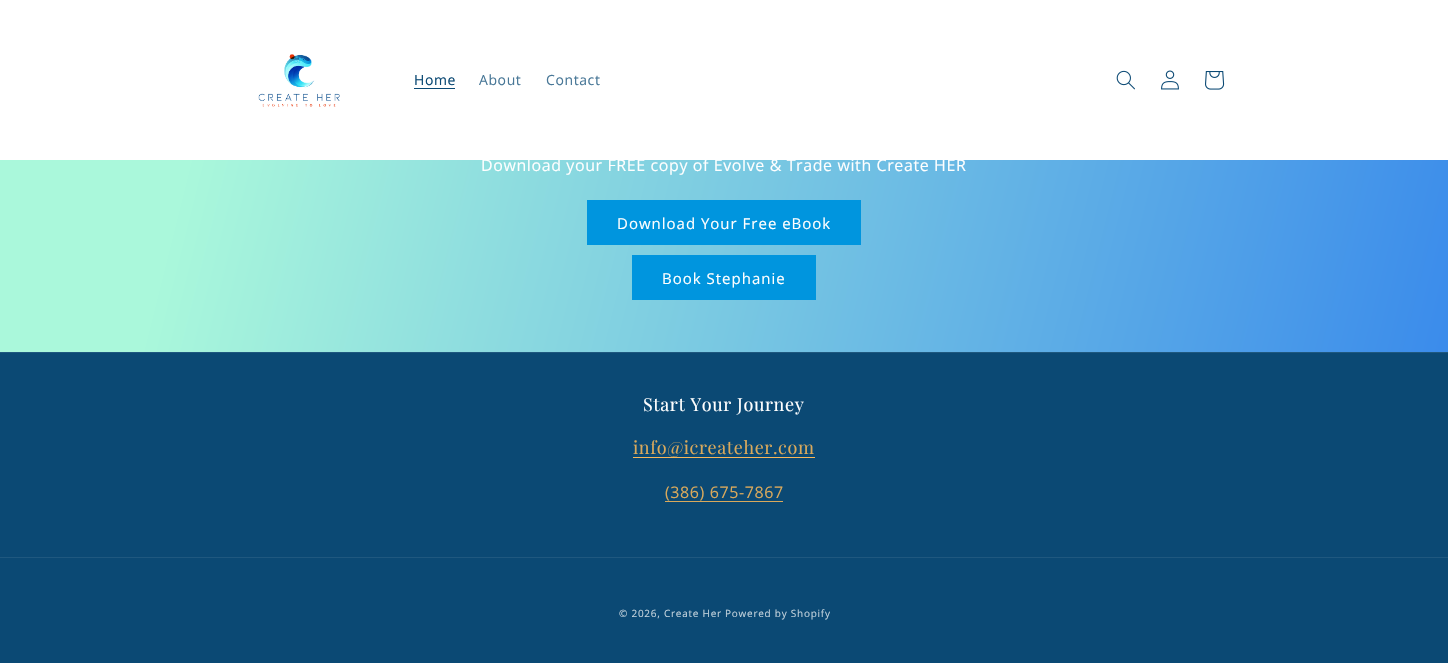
void draw(SkCanvas* canvas) {
    SkPaint paint;
    paint.setAntiAlias(true);
    auto face = [&](const char* family, int weight, float size, bool italic = false) {
        SkFontStyle style(weight, SkFontStyle::kNormal_Width,
            italic ? SkFontStyle::kItalic_Slant : SkFontStyle::kUpright_Slant);
        SkFont result(fontMgr->matchFamilyStyle(family, style), size);
        result.setSubpixel(true);
        return result;
    };
    auto writeSpaced = [&](const char* s, float x, float y, const SkFont& font, const SkPaint& ink, float letter, float word) {
        std::vector<SkGlyphID> glyphs(font.countText(s, strlen(s), SkTextEncoding::kUTF8));
        std::vector<float> xs(glyphs.size());
        font.textToGlyphs(s, strlen(s), SkTextEncoding::kUTF8, glyphs);
        font.getXPos(glyphs, xs, x);
        float extra = 0;
        for (size_t i = 0; i < glyphs.size(); i++) {
            xs[i] += extra;
            extra += letter + word * (glyphs[i] == font.unicharToGlyph(' '));
        }
        canvas->drawTextBlob(SkTextBlob::MakeFromPosHGlyphs(glyphs, xs, y, font), 0, 0, ink);
    };
    auto block = [&](float x, float y, float w, float h, SkColor color) {
        SkPaint ink(SkColor4f::FromColor(color));
        ink.setAntiAlias(true);
        canvas->drawRect(SkRect::MakeXYWH(x, y, w, h), ink);
    };
    auto paste = [&](const char* path, float x, float y, float w, float h) {
        auto image = SkImages::DeferredFromEncodedData(SkData::MakeFromFileName(path));
        canvas->drawImageRect(image, SkRect::MakeXYWH(x, y, w, h), SkSamplingOptions());
    };
    canvas->clear(SkColorSetRGB(11, 73, 116));
    block(0, 0, 1448, 160, SK_ColorWHITE);
    paste("pic1.png", 258, 54, 82, 53);
    auto kFont1 = face("Open Sans", 400, 14);
    paint.setColor(SkColorSetRGB(11, 73, 116));
    writeSpaced("Home", 414, 85, kFont1, paint, 0.6f, 0);
    block(414, 88, 41, 1, SkColorSetRGB(11, 73, 116));
    paint.setColor(SkColorSetRGB(72, 119, 151));
    writeSpaced("About", 479, 85, kFont1, paint, 0.6f, 0);
    writeSpaced("Contact", 546, 85, kFont1, paint, 0.6f, 0);
    paste("pic2.png", 1116, 70, 19, 20);
    paste("pic3.png", 1161, 70, 18, 20);
    paste("pic4.png", 1205, 71, 20, 19);
    {
        const SkColor colors[] = {SkColorSetRGB(52, 133, 236), SkColorSetRGB(170, 248, 219)};
        const float stops[] = {0, 0.86f};
        const SkPoint ends[] = {{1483, 521}, {-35, 142}};
        paint.setShader(SkGradientShader::MakeLinear(ends, colors, stops, 2, SkTileMode::kClamp));
        paint.setAlpha(255);
    }
    canvas->drawRect(SkRect::MakeXYWH(0, 160, 1448, 192), paint);
    auto kFont2 = face("Open Sans", 400, 16);
    paint.setShader(nullptr);
    paint.setColor(SK_ColorWHITE);
    writeSpaced("Download your FREE copy of Evolve & Trade with Create HER", 481, 171, kFont2, paint, 0.6f, 0);
    block(587, 200, 274, 45, SkColorSetRGB(0, 149, 222));
    auto kFont3 = face("Open Sans", 400, 15);
    writeSpaced("Download Your Free eBook", 617, 229, kFont3, paint, 1, 0);
    block(632, 255, 184, 45, SkColorSetRGB(0, 149, 222));
    writeSpaced("Book Stephanie", 662, 284, kFont3, paint, 1, 0);
    block(0, 352, 1448, 1, SkColorSetRGB(31, 88, 127));
    auto kFont4 = face("Playfair Display", 400, 18);
    writeSpaced("Start Your Journey", 643, 411, kFont4, paint, 0.6f, 0);
    paint.setColor(SkColorSetRGB(217, 169, 92));
    writeSpaced("info@icreateher.com", 633, 454, kFont4, paint, 0.6f, 0);
    block(633, 457, 182, 1, SkColorSetRGB(248, 183, 89));
    writeSpaced("(386) 675-7867", 665, 498, kFont2, paint, 0.6f, 0);
    block(665, 501, 118, 1, SkColorSetRGB(217, 169, 92));
    block(0, 557, 1448, 1, SkColorSetRGB(31, 88, 127));
    auto kFont5 = face("Open Sans", 400, 10);
    paint.setColor(SkColorSetRGB(194, 210, 220));
    writeSpaced("© 2026, Create Her", 619, 617, kFont5, paint, 0.75f, 0);
    writeSpaced("Powered by Shopify", 725, 617, kFont5, paint, 0.75f, 0);
}
